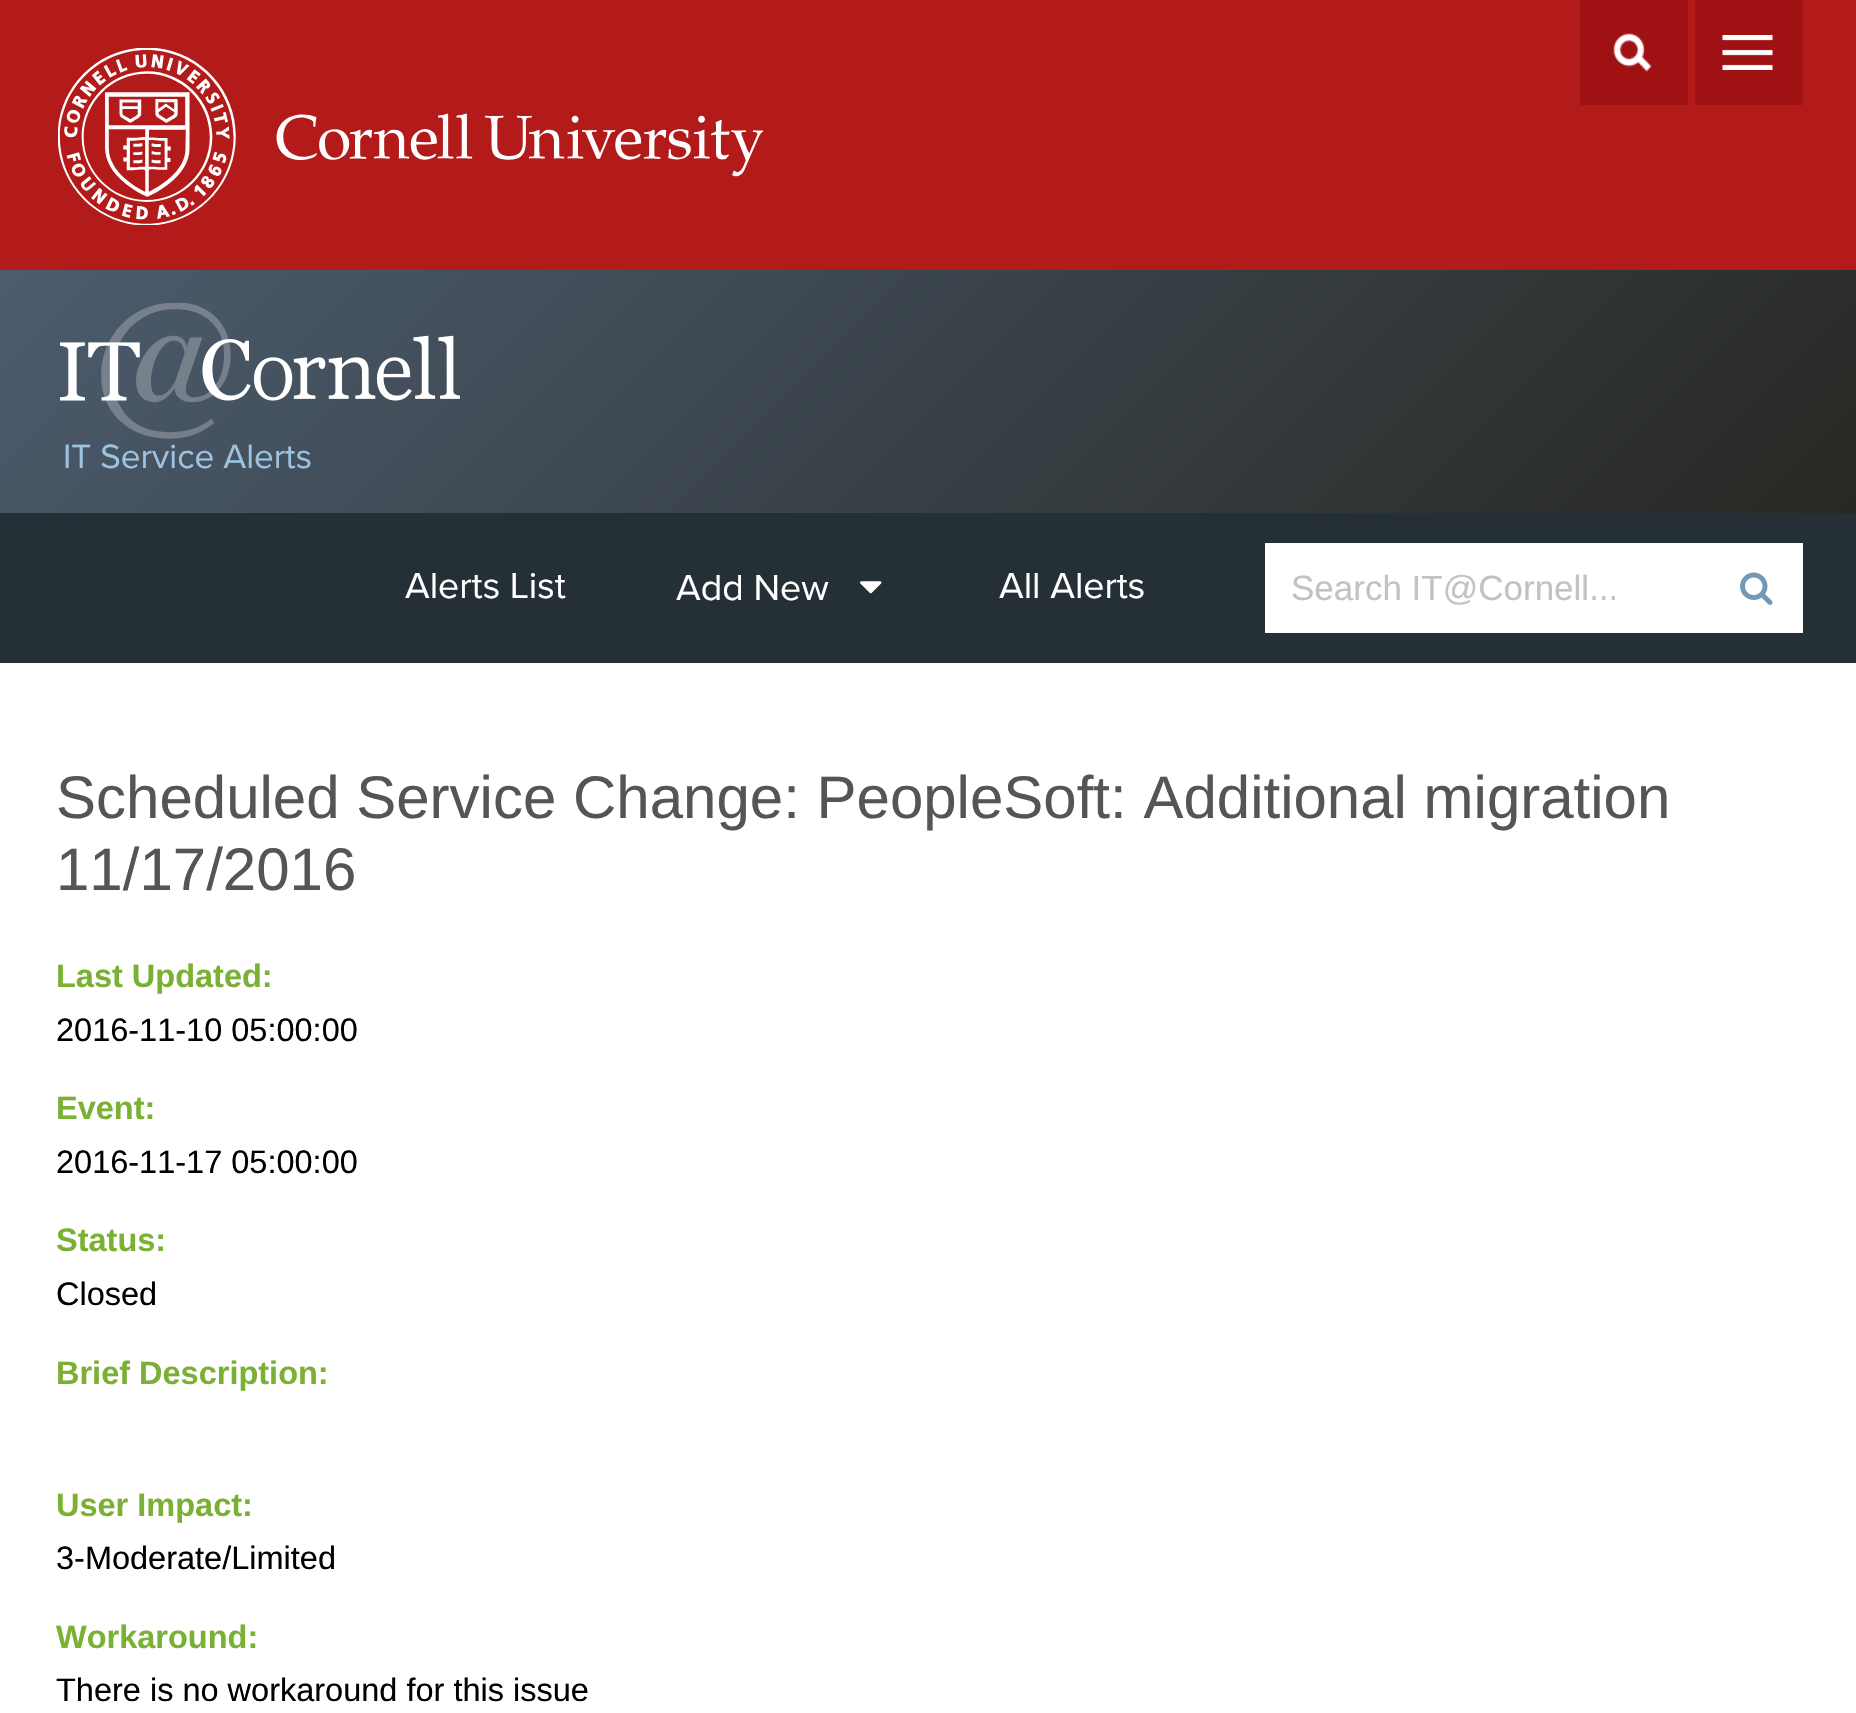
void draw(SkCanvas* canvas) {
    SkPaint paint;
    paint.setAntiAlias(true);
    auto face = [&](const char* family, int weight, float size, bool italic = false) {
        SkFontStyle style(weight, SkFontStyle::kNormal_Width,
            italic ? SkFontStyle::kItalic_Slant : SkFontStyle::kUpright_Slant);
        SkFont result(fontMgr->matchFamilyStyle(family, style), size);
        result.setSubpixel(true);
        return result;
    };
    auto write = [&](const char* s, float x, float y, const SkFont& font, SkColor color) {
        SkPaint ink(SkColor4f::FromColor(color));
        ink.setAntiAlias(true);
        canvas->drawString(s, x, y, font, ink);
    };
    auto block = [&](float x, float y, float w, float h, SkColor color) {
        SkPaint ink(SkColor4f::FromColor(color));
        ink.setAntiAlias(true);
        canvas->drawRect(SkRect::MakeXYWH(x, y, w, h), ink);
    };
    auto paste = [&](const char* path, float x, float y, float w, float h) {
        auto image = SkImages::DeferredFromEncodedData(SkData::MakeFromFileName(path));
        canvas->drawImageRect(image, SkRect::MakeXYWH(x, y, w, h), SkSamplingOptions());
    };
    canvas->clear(SK_ColorWHITE);
    block(0, 0, 1856, 270, SkColorSetRGB(179, 27, 27));
    paste("pic1.png", 58, 48, 705, 177);
    block(1580, 0, 108, 105, SkColorSetRGB(160, 17, 20));
    paste("pic2.png", 1613, 33, 39, 39);
    block(1695, 0, 108, 105, SkColorSetRGB(160, 17, 20));
    paste("pic3.png", 1722, 35, 51, 35);
    {
        const SkColor colors[] = {SkColorSetRGB(76, 92, 110), SkColorSetRGB(39, 40, 35)};
        const float stops[] = {0, 1};
        const SkPoint ends[] = {{404, -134}, {1454, 916}};
        paint.setShader(SkGradientShader::MakeLinear(ends, colors, stops, 2, SkTileMode::kClamp));
        paint.setAlpha(255);
    }
    canvas->drawRect(SkRect::MakeXYWH(0, 270, 1856, 243), paint);
    paste("pic4.png", 60, 303, 400, 136);
    auto kFont1 = face("Proxima Nova", 400, 35);
    write("IT Service Alerts", 63, 468, kFont1, SkColorSetRGB(156, 196, 225));
    block(0, 513, 1856, 150, SkColorSetRGB(36, 47, 54));
    auto kFont2 = face("Proxima Nova", 400, 37.5f);
    write("Alerts List", 405, 598, kFont2, SK_ColorWHITE);
    write("Add New", 676, 600, kFont2, SK_ColorWHITE);
    paste("pic5.png", 860, 581, 22, 13);
    write("All Alerts", 999, 598, kFont2, SK_ColorWHITE);
    block(1265, 543, 538, 90, SK_ColorWHITE);
    auto kFont3 = face("Liberation Sans", 400, 35);
    write("Search IT@Cornell...", 1291, 600, kFont3, SkColorSetRGB(194, 194, 194));
    paste("pic6.png", 1740, 572, 33, 33);
    auto kFont4 = face("Liberation Sans", 400, 60);
    write("Scheduled Service Change: PeopleSoft: Additional migration", 56, 818, kFont4, SkColorSetRGB(85, 85, 85));
    write("11/17/2016", 56, 890, kFont4, SkColorSetRGB(85, 85, 85));
    auto kFont5 = face("Liberation Sans", 700, 32.5f);
    write("Last Updated:", 56, 987, kFont5, SkColorSetRGB(122, 176, 52));
    auto kFont6 = face("Liberation Sans", 400, 32.5f);
    write("2016-11-10 05:00:00", 56, 1041, kFont6, SK_ColorBLACK);
    write("Event:", 56, 1119, kFont5, SkColorSetRGB(122, 176, 52));
    write("2016-11-17 05:00:00", 56, 1173, kFont6, SK_ColorBLACK);
    write("Status:", 56, 1251, kFont5, SkColorSetRGB(122, 176, 52));
    write("Closed", 56, 1305, kFont6, SK_ColorBLACK);
    write("Brief Description:", 56, 1384, kFont5, SkColorSetRGB(122, 176, 52));
    write("User Impact:", 56, 1516, kFont5, SkColorSetRGB(122, 176, 52));
    write("3-Moderate/Limited", 56, 1569, kFont6, SK_ColorBLACK);
    write("Workaround:", 56, 1648, kFont5, SkColorSetRGB(122, 176, 52));
    write("There is no workaround for this issue", 56, 1701, kFont6, SK_ColorBLACK);
}
